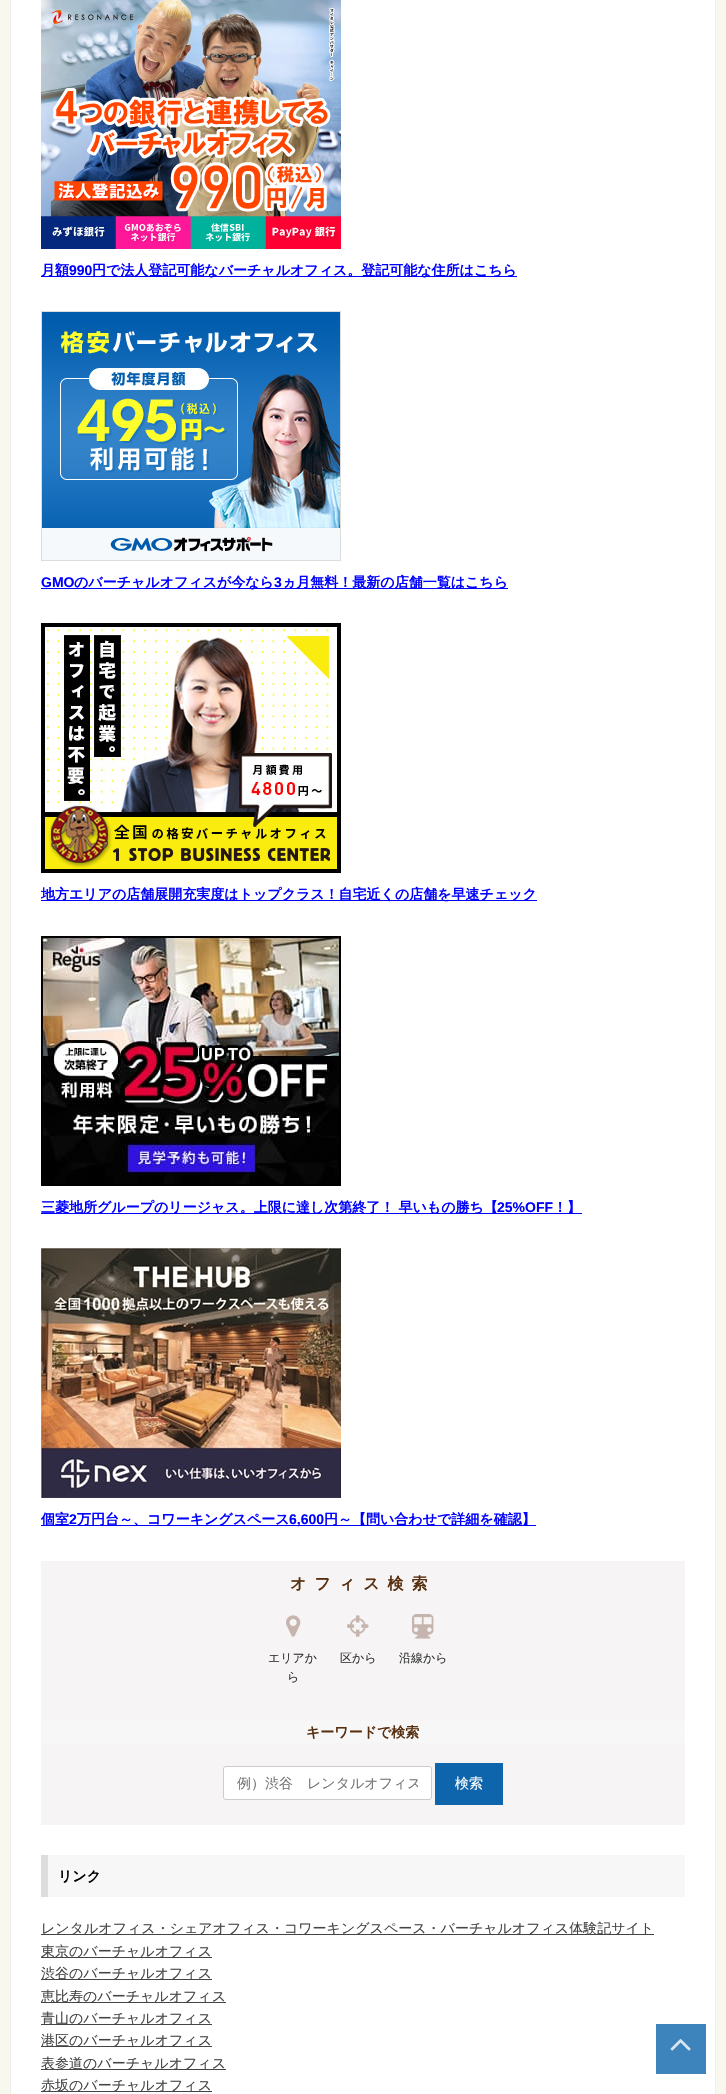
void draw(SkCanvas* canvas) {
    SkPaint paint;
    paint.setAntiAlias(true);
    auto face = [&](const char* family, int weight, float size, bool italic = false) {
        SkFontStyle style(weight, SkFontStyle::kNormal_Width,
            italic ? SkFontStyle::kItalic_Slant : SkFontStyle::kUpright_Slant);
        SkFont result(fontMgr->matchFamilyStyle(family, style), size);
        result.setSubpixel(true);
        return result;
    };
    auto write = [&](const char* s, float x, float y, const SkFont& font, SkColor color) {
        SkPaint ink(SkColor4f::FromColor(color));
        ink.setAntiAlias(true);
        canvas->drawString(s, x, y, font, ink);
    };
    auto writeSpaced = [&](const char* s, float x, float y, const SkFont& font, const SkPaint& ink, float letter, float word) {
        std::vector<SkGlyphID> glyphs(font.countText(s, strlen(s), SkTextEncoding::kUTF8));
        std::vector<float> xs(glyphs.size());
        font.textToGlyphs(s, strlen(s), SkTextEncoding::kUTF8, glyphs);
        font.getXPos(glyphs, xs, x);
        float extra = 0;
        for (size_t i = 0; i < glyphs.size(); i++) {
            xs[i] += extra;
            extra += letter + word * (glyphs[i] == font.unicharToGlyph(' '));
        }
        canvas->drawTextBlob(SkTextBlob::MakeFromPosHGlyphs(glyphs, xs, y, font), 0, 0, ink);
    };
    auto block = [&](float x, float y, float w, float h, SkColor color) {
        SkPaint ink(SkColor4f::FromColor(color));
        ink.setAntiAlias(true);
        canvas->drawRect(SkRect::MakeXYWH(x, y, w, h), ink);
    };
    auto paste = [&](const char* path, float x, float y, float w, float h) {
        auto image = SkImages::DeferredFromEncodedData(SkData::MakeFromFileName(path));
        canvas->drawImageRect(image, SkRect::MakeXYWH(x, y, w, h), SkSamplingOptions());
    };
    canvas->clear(SkColorSetRGB(249, 248, 238));
    paint.setColor(SK_ColorWHITE);
    canvas->drawRect(SkRect::MakeXYWH(10.5f, -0.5f, 705, 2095), paint);
    paint.setStyle(SkPaint::kStroke_Style);
    paint.setStrokeWidth(1);
    paint.setColor(SkColorSetRGB(238, 238, 238));
    canvas->drawRect(SkRect::MakeXYWH(10.5f, -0.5f, 705, 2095), paint);
    paste("pic1.png", 41, 0, 300, 249);
    block(41, 276, 476, 1, SkColorSetRGB(0, 0, 255));
    auto kFont1 = face("WenQuanYi Zen Hei", 700, 14);
    write("月額", 41, 275, kFont1, SkColorSetRGB(0, 0, 255));
    auto kFont2 = face("Liberation Sans", 700, 14);
    write("990", 69, 275, kFont2, SkColorSetRGB(0, 0, 255));
    write("円で法人登記可能なバーチャルオフィス。登記可能な住所はこちら", 92, 275, kFont1, SkColorSetRGB(0, 0, 255));
    paste("pic2.png", 41, 311, 300, 250);
    write("GMO", 41, 587, kFont2, SkColorSetRGB(0, 0, 255));
    block(41, 588, 467, 1, SkColorSetRGB(0, 0, 255));
    write("のバーチャルオフィスが今なら", 74, 587, kFont1, SkColorSetRGB(0, 0, 255));
    write("3", 274, 587, kFont2, SkColorSetRGB(0, 0, 255));
    write("ヵ月無料！最新の店舗一覧はこちら", 282, 587, kFont1, SkColorSetRGB(0, 0, 255));
    paste("pic3.png", 41, 623, 300, 250);
    block(41, 900, 496, 1, SkColorSetRGB(0, 0, 255));
    write("地方エリアの店舗展開充実度はトップクラス！自宅近くの店舗を早速チェック", 41, 899, kFont1, SkColorSetRGB(0, 0, 255));
    paste("pic4.png", 41, 936, 300, 250);
    block(41, 1213, 541, 1, SkColorSetRGB(0, 0, 255));
    write("三菱地所グループのリージャス。上限に達し次第終了！ 早いもの勝ち【", 41, 1212, kFont1, SkColorSetRGB(0, 0, 255));
    write("25%OFF", 497, 1212, kFont2, SkColorSetRGB(0, 0, 255));
    write("！】", 553, 1212, kFont1, SkColorSetRGB(0, 0, 255));
    paste("pic5.png", 41, 1248, 300, 250);
    block(41, 1525, 495, 1, SkColorSetRGB(0, 0, 255));
    write("個室", 41, 1524, kFont1, SkColorSetRGB(0, 0, 255));
    write("2", 69, 1524, kFont2, SkColorSetRGB(0, 0, 255));
    write("万円台～、コワーキングスペース", 77, 1524, kFont1, SkColorSetRGB(0, 0, 255));
    write("6,600", 289, 1524, kFont2, SkColorSetRGB(0, 0, 255));
    write("円～【問い合わせで詳細を確認】", 324, 1524, kFont1, SkColorSetRGB(0, 0, 255));
    block(41, 1561, 644, 160, SkColorSetRGB(246, 244, 244));
    auto kFont3 = face("WenQuanYi Zen Hei", 700, 16);
    paint.setStyle(SkPaint::kFill_Style);
    paint.setColor(SkColorSetRGB(87, 46, 15));
    writeSpaced("オフィス検索", 290, 1589, kFont3, paint, 8, 0);
    paste("pic6.png", 286, 1615, 15, 22);
    auto kFont4 = face("WenQuanYi Zen Hei", 500, 12);
    write("エリアか", 268, 1662, kFont4, SkColorSetRGB(51, 51, 51));
    write("ら", 287, 1681, kFont4, SkColorSetRGB(51, 51, 51));
    paste("pic7.png", 347, 1615, 22, 22);
    write("区から", 340, 1662, kFont4, SkColorSetRGB(51, 51, 51));
    paste("pic8.png", 412, 1614, 22, 25);
    write("沿線から", 399, 1662, kFont4, SkColorSetRGB(51, 51, 51));
    block(41, 1743, 644, 82, SkColorSetRGB(246, 244, 244));
    block(41, 1721, 644, 22, SkColorSetRGB(247, 247, 247));
    write("キーワードで検索", 306, 1737, kFont1, SkColorSetRGB(87, 46, 15));
    paint.setColor(SK_ColorWHITE);
    canvas->drawRoundRect(SkRect::MakeXYWH(223.5f, 1766.5f, 208, 33), 2.5f, 2.5f, paint);
    paint.setStyle(SkPaint::kStroke_Style);
    paint.setColor(SkColorSetRGB(204, 204, 204));
    canvas->drawRoundRect(SkRect::MakeXYWH(223.5f, 1766.5f, 208, 33), 2.5f, 2.5f, paint);
    canvas->save();
    canvas->clipRect(SkRect::MakeXYWH(237, 1775, 181, 18));
    auto kFont5 = face("WenQuanYi Zen Hei", 500, 14);
    write("例）渋谷　レンタルオフィス", 237, 1788, kFont5, SkColorSetRGB(117, 117, 117));
    canvas->restore();
    block(435, 1763, 68, 42, SkColorSetRGB(14, 101, 171));
    write("検索", 455, 1788, kFont5, SK_ColorWHITE);
    block(48, 1855, 637, 42, SkColorSetRGB(247, 247, 247));
    block(41, 1855, 7, 42, SkColorSetRGB(221, 221, 221));
    write("リンク", 58, 1881, kFont1, SK_ColorBLACK);
    block(41, 1934, 613, 1, SkColorSetRGB(68, 68, 68));
    write("レンタルオフィス・シェアオフィス・コワーキングスペース・バーチャルオフィス体験記サイト", 41, 1933, kFont5, SkColorSetRGB(68, 68, 68));
    block(41, 1957, 171, 1, SkColorSetRGB(68, 68, 68));
    write("東京のバーチャルオフィス", 41, 1956, kFont5, SkColorSetRGB(68, 68, 68));
    block(41, 1979, 171, 1, SkColorSetRGB(68, 68, 68));
    write("渋谷のバーチャルオフィス", 41, 1978, kFont5, SkColorSetRGB(68, 68, 68));
    block(41, 2002, 185, 1, SkColorSetRGB(68, 68, 68));
    write("恵比寿のバーチャルオフィス", 41, 2001, kFont5, SkColorSetRGB(68, 68, 68));
    block(41, 2024, 171, 1, SkColorSetRGB(68, 68, 68));
    write("青山のバーチャルオフィス", 41, 2023, kFont5, SkColorSetRGB(68, 68, 68));
    block(41, 2046, 171, 1, SkColorSetRGB(68, 68, 68));
    write("港区のバーチャルオフィス", 41, 2045, kFont5, SkColorSetRGB(68, 68, 68));
    block(41, 2069, 185, 1, SkColorSetRGB(68, 68, 68));
    write("表参道のバーチャルオフィス", 41, 2068, kFont5, SkColorSetRGB(68, 68, 68));
    block(41, 2091, 171, 1, SkColorSetRGB(68, 68, 68));
    write("赤坂のバーチャルオフィス", 41, 2090, kFont5, SkColorSetRGB(68, 68, 68));
    block(656, 2024, 50, 50, SkColorSetRGB(62, 132, 188));
    paste("pic9.png", 670, 2039, 21, 12);
}
